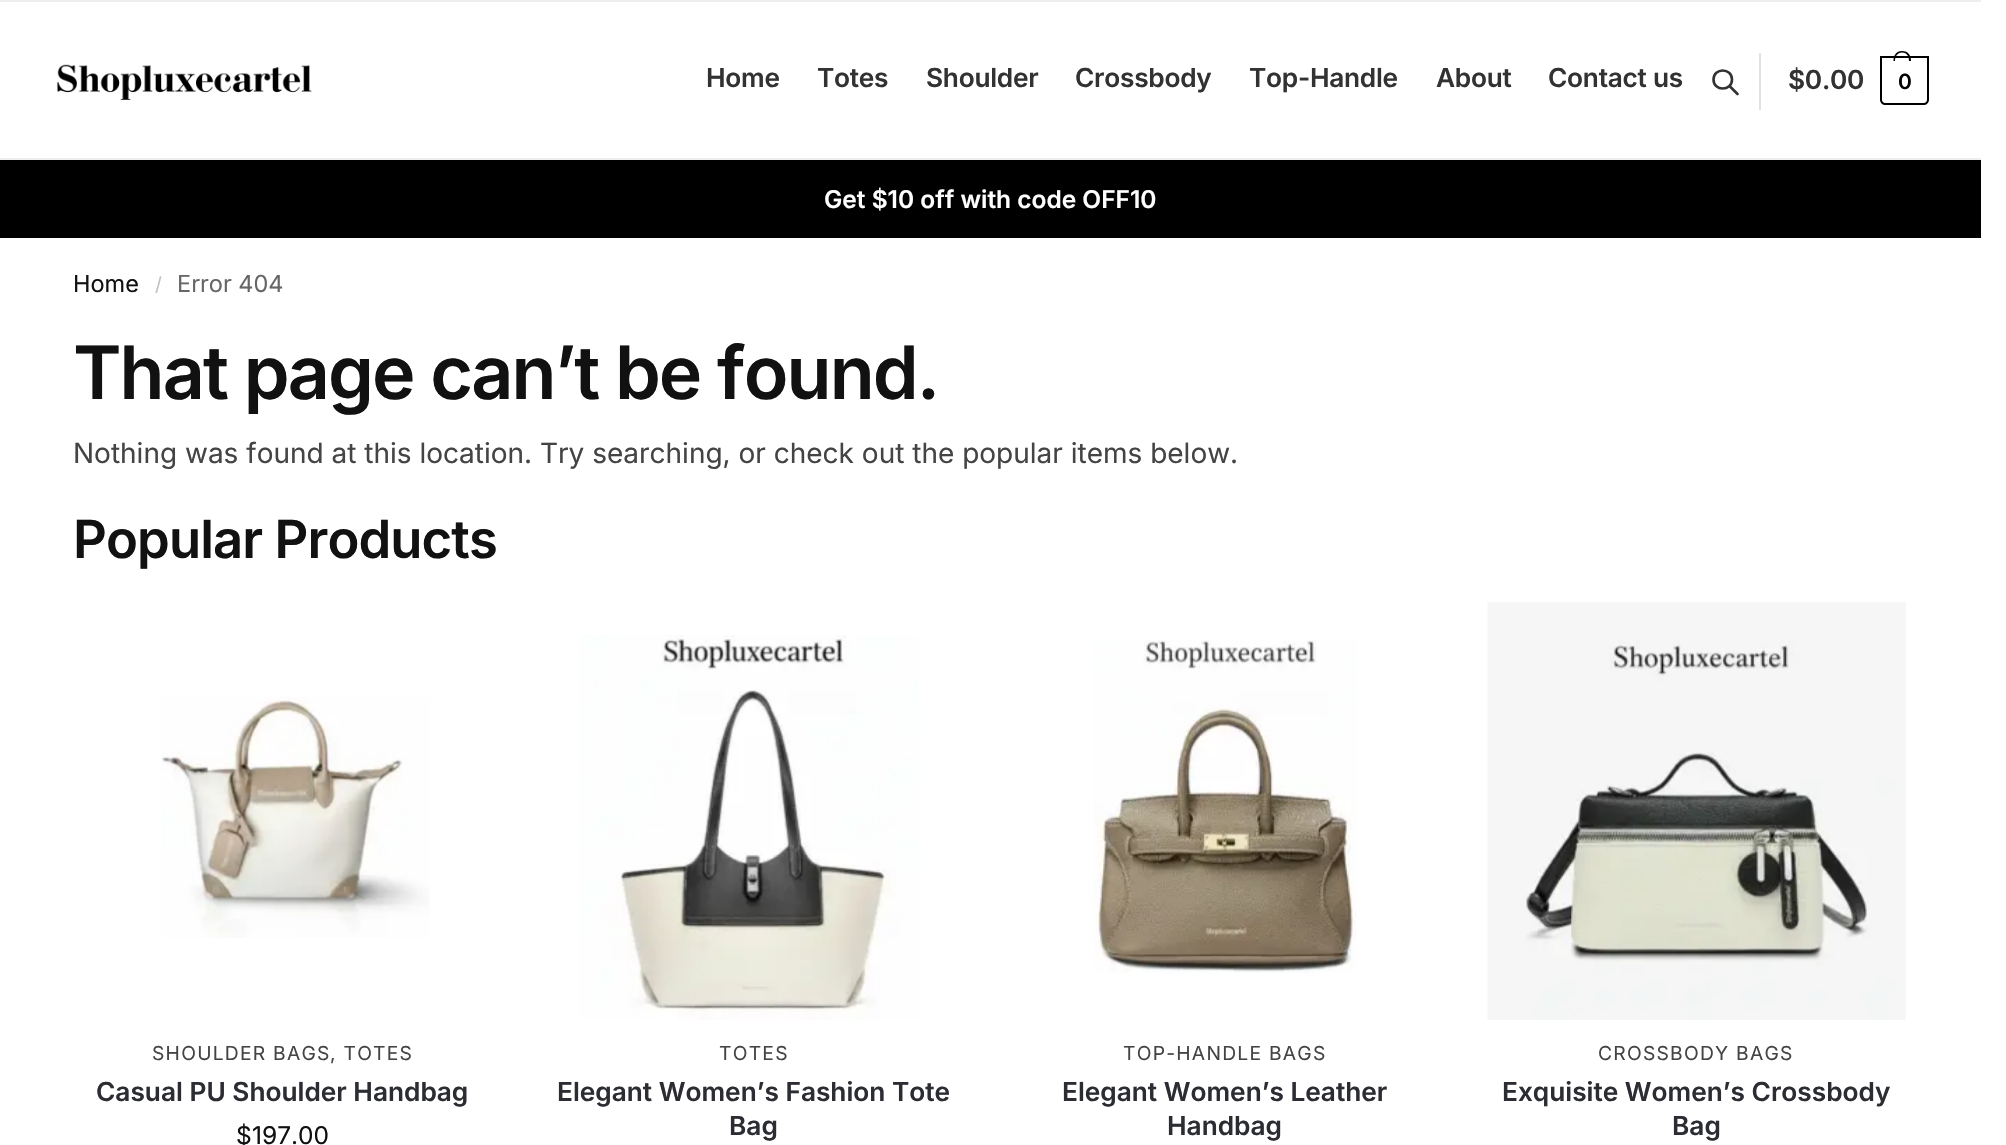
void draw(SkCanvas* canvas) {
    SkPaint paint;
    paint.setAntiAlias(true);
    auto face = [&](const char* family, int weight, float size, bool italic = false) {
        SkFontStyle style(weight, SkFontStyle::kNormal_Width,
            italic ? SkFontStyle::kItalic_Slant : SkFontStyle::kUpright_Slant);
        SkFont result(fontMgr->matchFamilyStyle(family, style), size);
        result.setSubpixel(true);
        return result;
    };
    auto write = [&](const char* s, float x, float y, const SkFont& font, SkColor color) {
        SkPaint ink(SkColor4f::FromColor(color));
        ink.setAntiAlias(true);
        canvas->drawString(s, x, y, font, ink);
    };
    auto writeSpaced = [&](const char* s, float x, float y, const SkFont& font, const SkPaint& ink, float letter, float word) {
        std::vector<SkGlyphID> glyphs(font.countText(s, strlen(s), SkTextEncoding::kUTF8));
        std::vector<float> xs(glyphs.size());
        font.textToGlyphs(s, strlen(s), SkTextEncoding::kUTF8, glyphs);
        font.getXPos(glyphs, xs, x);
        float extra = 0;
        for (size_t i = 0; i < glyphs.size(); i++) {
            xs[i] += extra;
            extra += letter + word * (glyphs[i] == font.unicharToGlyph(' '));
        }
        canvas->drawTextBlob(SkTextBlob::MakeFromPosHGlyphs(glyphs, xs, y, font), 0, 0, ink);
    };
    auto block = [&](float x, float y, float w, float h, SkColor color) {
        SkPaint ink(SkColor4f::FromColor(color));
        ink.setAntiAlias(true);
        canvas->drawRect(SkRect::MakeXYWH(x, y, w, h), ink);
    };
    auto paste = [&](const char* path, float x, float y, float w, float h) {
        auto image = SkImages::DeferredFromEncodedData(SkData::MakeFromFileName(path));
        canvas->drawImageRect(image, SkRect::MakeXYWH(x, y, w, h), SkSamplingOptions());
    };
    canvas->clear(SK_ColorWHITE);
    block(0, 0, 1981, 2, SkColorSetRGB(238, 238, 238));
    block(0, 158, 1981, 2, SkColorSetRGB(238, 238, 238));
    paste("pic1.png", 56, 64, 256, 36);
    auto kFont1 = face("Inter", 600, 26.25f);
    paint.setColor(SkColorSetRGB(50, 50, 50));
    writeSpaced("Home", 706, 87, kFont1, paint, -0.25f, 0);
    writeSpaced("Totes", 817, 87, kFont1, paint, -0.25f, 0);
    writeSpaced("Shoulder", 926, 87, kFont1, paint, -0.25f, 0);
    writeSpaced("Crossbody", 1075, 87, kFont1, paint, -0.25f, 0);
    writeSpaced("Top-Handle", 1249, 87, kFont1, paint, -0.25f, 0);
    writeSpaced("About", 1436, 87, kFont1, paint, -0.25f, 0);
    writeSpaced("Contact us", 1548, 87, kFont1, paint, -0.25f, 0);
    paint.setStyle(SkPaint::kStroke_Style);
    paint.setStrokeWidth(2.6f);
    paint.setStrokeCap(SkPaint::kRound_Cap);
    paint.setStrokeJoin(SkPaint::kRound_Join);
    canvas->drawPath(SkPathBuilder().moveTo(1737.5f, 94).lineTo(1729.5f, 86).moveTo(1732, 79.5f).cubicTo(1732, 91.5f, 1713.5f, 91.5f, 1713.5f, 79.5f).cubicTo(1713.5f, 67.5f, 1732, 67.5f, 1732, 79.5f).close().detach(), paint);
    block(1759, 53, 2, 57, SkColorSetRGB(226, 226, 226));
    paint.setStyle(SkPaint::kFill_Style);
    writeSpaced("$0.00", 1788, 89, kFont1, paint, -0.25f, 0);
    paint.setStyle(SkPaint::kStroke_Style);
    paint.setStrokeWidth(2);
    paint.setStrokeCap(SkPaint::kButt_Cap);
    paint.setStrokeJoin(SkPaint::kMiter_Join);
    paint.setColor(SK_ColorBLACK);
    canvas->drawPath(SkPathBuilder().moveTo(1881, 57).lineTo(1928, 57).lineTo(1928, 100).cubicTo(1928, 102, 1926, 104, 1924, 104).lineTo(1885, 104).cubicTo(1883, 104, 1881, 102, 1881, 100).close().detach(), paint);
    paint.setStyle(SkPaint::kFill_Style);
    canvas->drawPath(SkPathBuilder(SkPathFillType::kEvenOdd).moveTo(1902, 51).cubicTo(1908.5f, 51, 1911, 55.5f, 1911, 61).lineTo(1893.5f, 61).cubicTo(1893.5f, 55.5f, 1896, 51, 1902, 51).close().moveTo(1902, 52.5f).cubicTo(1907.5f, 52.5f, 1909, 57, 1909, 61).lineTo(1895, 61).cubicTo(1895, 57, 1897, 52.5f, 1902, 52.5f).close().detach(), paint);
    auto kFont2 = face("Inter", 600, 21);
    writeSpaced("0", 1898, 89, kFont2, paint, -1, 0);
    block(0, 160, 1981, 78, SK_ColorBLACK);
    auto kFont3 = face("Inter", 600, 24.5f);
    write("Get $10 off with code OFF10", 824, 208, kFont3, SK_ColorWHITE);
    auto kFont4 = face("Inter", 400, 23.5f);
    write("Home", 73, 292, kFont4, SkColorSetRGB(17, 17, 17));
    auto kFont5 = face("Inter", 400, 19);
    write("/", 155, 291, kFont5, SkColorSetRGB(194, 194, 194));
    write("Error 404", 177, 292, kFont4, SkColorSetRGB(102, 102, 102));
    auto kFont6 = face("Inter", 600, 73.5f);
    paint.setColor(SkColorSetRGB(17, 17, 17));
    writeSpaced("That page can’t be found.", 73, 399, kFont6, paint, -1.9f, 0);
    auto kFont7 = face("Inter", 400, 28);
    write("Nothing was found at this location. Try searching, or check out the popular items below.", 73, 463, kFont7, SkColorSetRGB(68, 68, 68));
    auto kFont8 = face("Inter", 600, 52.5f);
    writeSpaced("Popular Products", 73, 558, kFont8, paint, -0.9f, 0);
    paste("pic2.png", 161, 697, 269, 241);
    auto kFont9 = face("Inter", 400, 19.25f);
    paint.setColor(SkColorSetRGB(68, 68, 68));
    writeSpaced("SHOULDER BAGS", 152, 1060, kFont9, paint, 1.25f, 0);
    writeSpaced(", TOTES", 330, 1060, kFont9, paint, 1.25f, 0);
    write("Casual PU Shoulder Handbag", 96, 1101, kFont1, SkColorSetRGB(44, 45, 51));
    auto kFont10 = face("Inter", 400, 24.5f);
    write("$", 236, 1144, kFont10, SkColorSetRGB(17, 17, 17));
    write("197.00", 252, 1144, kFont10, SkColorSetRGB(17, 17, 17));
    paste("pic3.png", 579, 635, 340, 385);
    writeSpaced("TOTES", 719, 1060, kFont9, paint, 1.25f, 0);
    write("Elegant Women’s Fashion Tote", 557, 1101, kFont1, SkColorSetRGB(44, 45, 51));
    write("Bag", 729, 1135, kFont1, SkColorSetRGB(44, 45, 51));
    paste("pic4.png", 1093, 640, 264, 333);
    writeSpaced("TOP-HANDLE BAGS", 1123, 1060, kFont9, paint, 1.25f, 0);
    write("Elegant Women’s Leather", 1062, 1101, kFont1, SkColorSetRGB(44, 45, 51));
    write("Handbag", 1167, 1135, kFont1, SkColorSetRGB(44, 45, 51));
    paste("pic5.png", 1487, 602, 419, 418);
    writeSpaced("CROSSBODY BAGS", 1598, 1060, kFont9, paint, 1.25f, 0);
    write("Exquisite Women’s Crossbody", 1502, 1101, kFont1, SkColorSetRGB(44, 45, 51));
    write("Bag", 1672, 1135, kFont1, SkColorSetRGB(44, 45, 51));
}
